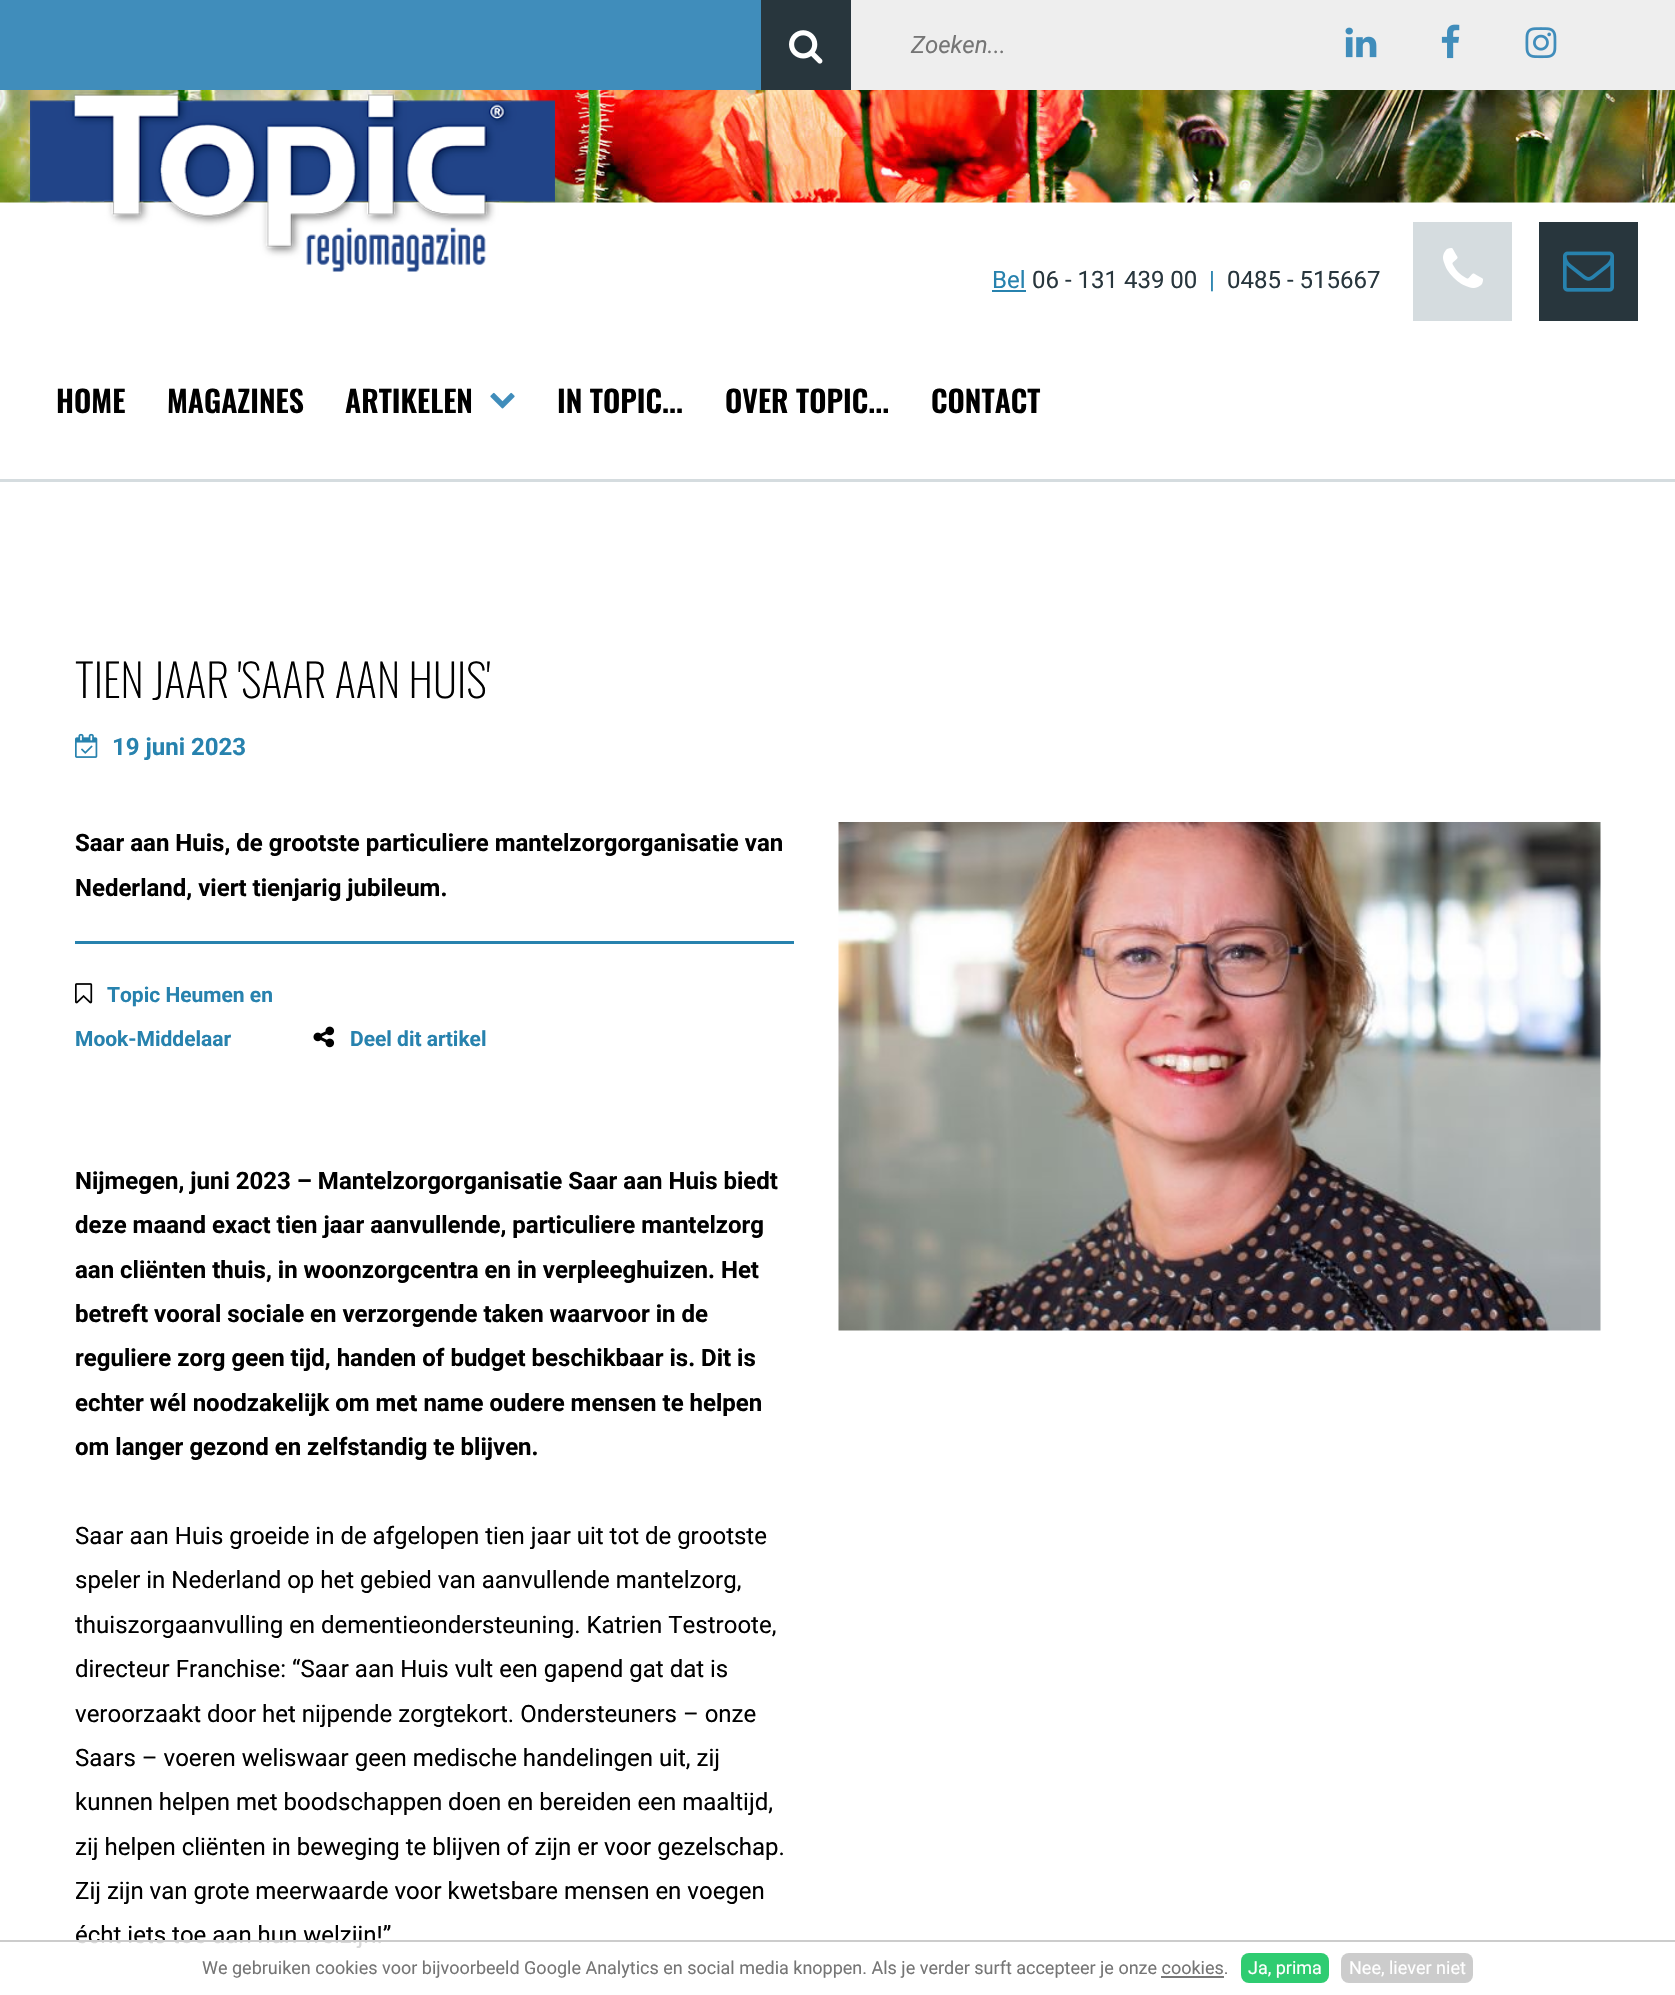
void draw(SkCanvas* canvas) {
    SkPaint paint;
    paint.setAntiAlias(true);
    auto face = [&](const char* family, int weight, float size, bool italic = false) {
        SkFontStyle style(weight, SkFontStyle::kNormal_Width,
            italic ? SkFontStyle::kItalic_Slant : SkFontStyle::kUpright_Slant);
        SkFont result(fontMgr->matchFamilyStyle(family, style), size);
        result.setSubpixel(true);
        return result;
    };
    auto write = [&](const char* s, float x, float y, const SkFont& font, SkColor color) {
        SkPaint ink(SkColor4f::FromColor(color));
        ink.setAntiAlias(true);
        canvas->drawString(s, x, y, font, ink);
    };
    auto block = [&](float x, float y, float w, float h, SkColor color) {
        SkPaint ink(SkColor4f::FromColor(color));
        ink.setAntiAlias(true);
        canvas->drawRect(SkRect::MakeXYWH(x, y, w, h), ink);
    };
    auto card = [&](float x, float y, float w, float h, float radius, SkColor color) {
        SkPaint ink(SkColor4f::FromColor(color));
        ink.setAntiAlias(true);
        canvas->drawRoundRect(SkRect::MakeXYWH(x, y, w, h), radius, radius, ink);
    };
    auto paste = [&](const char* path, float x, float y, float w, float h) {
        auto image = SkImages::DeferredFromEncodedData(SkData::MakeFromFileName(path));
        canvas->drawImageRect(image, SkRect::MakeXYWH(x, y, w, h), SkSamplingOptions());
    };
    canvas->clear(SK_ColorWHITE);
    block(0, 0, 761, 90, SkColorSetRGB(64, 141, 187));
    block(851, 0, 824, 90, SkColorSetRGB(238, 238, 238));
    block(761, 0, 90, 90, SkColorSetRGB(40, 54, 61));
    paste("pic1.png", 789, 30, 34, 34);
    auto kFont1 = face("Roboto", 400, 24, true);
    write("Zoeken...", 911, 53, kFont1, SkColorSetRGB(117, 117, 117));
    paste("pic2.png", 1345, 27, 32, 31);
    paste("pic3.png", 1441, 24, 19, 35);
    paste("pic4.png", 1525, 27, 32, 32);
    paste("pic5.png", 0, 90, 1675, 113);
    paste("pic6.png", 30, 90, 525, 182);
    auto kFont2 = face("Roboto", 400, 24);
    write("Bel", 992, 288, kFont2, SkColorSetRGB(39, 130, 174));
    block(992, 290, 34, 2, SkColorSetRGB(39, 130, 174));
    write("06 - 131 439 00", 1032, 288, kFont2, SkColorSetRGB(40, 54, 61));
    write("|", 1209, 288, kFont2, SkColorSetRGB(39, 130, 174));
    write("0485 - 515667", 1227, 288, kFont2, SkColorSetRGB(40, 54, 61));
    block(1413, 222, 99, 99, SkColorSetRGB(213, 220, 223));
    paste("pic7.png", 1443, 248, 40, 40);
    block(1539, 222, 99, 99, SkColorSetRGB(40, 54, 61));
    paste("pic8.png", 1563, 251, 51, 41);
    block(0, 479, 1675, 3, SkColorSetRGB(213, 220, 223));
    auto kFont3 = face("Oswald", 600, 30);
    write("HOME", 56, 413, kFont3, SK_ColorBLACK);
    write("MAGAZINES", 167, 413, kFont3, SK_ColorBLACK);
    write("ARTIKELEN", 345, 413, kFont3, SK_ColorBLACK);
    paste("pic9.png", 490, 392, 25, 17);
    write("IN TOPIC...", 557, 413, kFont3, SK_ColorBLACK);
    write("OVER TOPIC...", 725, 413, kFont3, SK_ColorBLACK);
    write("CONTACT", 931, 413, kFont3, SK_ColorBLACK);
    auto kFont4 = face("Oswald", 200, 45);
    write("TIEN JAAR 'SAAR AAN HUIS'", 75, 698, kFont4, SK_ColorBLACK);
    paste("pic10.png", 75, 733, 23, 25);
    auto kFont5 = face("Roboto", 700, 24);
    write("19 juni 2023", 112, 755, kFont5, SkColorSetRGB(39, 130, 174));
    block(75, 941, 719, 3, SkColorSetRGB(39, 130, 174));
    write("Saar aan Huis, de grootste particuliere mantelzorgorganisatie van", 75, 851, kFont5, SK_ColorBLACK);
    write("Nederland, viert tienjarig jubileum.", 75, 896, kFont5, SK_ColorBLACK);
    paste("pic11.png", 75, 983, 18, 21);
    auto kFont6 = face("Roboto", 700, 21);
    write("Topic Heumen en", 107, 1002, kFont6, SkColorSetRGB(39, 130, 174));
    write("Mook-Middelaar", 75, 1046, kFont6, SkColorSetRGB(39, 130, 174));
    paste("pic12.png", 313, 1026, 22, 22);
    write("Deel dit artikel", 350, 1046, kFont6, SkColorSetRGB(39, 130, 174));
    write("Nijmegen, juni 2023 – Mantelzorgorganisatie Saar aan Huis biedt", 75, 1189, kFont5, SK_ColorBLACK);
    write("deze maand exact tien jaar aanvullende, particuliere mantelzorg", 75, 1233, kFont5, SK_ColorBLACK);
    write("aan cliënten thuis, in woonzorgcentra en in verpleeghuizen. Het", 75, 1278, kFont5, SK_ColorBLACK);
    write("betreft vooral sociale en verzorgende taken waarvoor in de", 75, 1322, kFont5, SK_ColorBLACK);
    write("reguliere zorg geen tijd, handen of budget beschikbaar is. Dit is", 75, 1366, kFont5, SK_ColorBLACK);
    write("echter wél noodzakelijk om met name oudere mensen te helpen", 75, 1411, kFont5, SK_ColorBLACK);
    write("om langer gezond en zelfstandig te blijven.", 75, 1455, kFont5, SK_ColorBLACK);
    write("Saar aan Huis groeide in de afgelopen tien jaar uit tot de grootste", 75, 1544, kFont2, SK_ColorBLACK);
    write("speler in Nederland op het gebied van aanvullende mantelzorg,", 75, 1588, kFont2, SK_ColorBLACK);
    write("thuiszorgaanvulling en dementieondersteuning. Katrien Testroote,", 75, 1633, kFont2, SK_ColorBLACK);
    write("directeur Franchise: “Saar aan Huis vult een gapend gat dat is", 75, 1677, kFont2, SK_ColorBLACK);
    write("veroorzaakt door het nijpende zorgtekort. Ondersteuners – onze", 75, 1722, kFont2, SK_ColorBLACK);
    write("Saars – voeren weliswaar geen medische handelingen uit, zij", 75, 1766, kFont2, SK_ColorBLACK);
    write("kunnen helpen met boodschappen doen en bereiden een maaltijd,", 75, 1810, kFont2, SK_ColorBLACK);
    write("zij helpen cliënten in beweging te blijven of zijn er voor gezelschap.", 75, 1855, kFont2, SK_ColorBLACK);
    write("Zij zijn van grote meerwaarde voor kwetsbare mensen en voegen", 75, 1899, kFont2, SK_ColorBLACK);
    write("écht iets toe aan hun welzijn!”", 75, 1943, kFont2, SK_ColorBLACK);
    paste("pic13.png", 838, 822, 763, 509);
    block(78, 1942, 303, 7, SkColorSetARGB(217, 255, 255, 255));
    block(0, 1940, 1675, 2, SkColorSetRGB(204, 204, 204));
    auto kFont7 = face("Roboto", 400, 18);
    write("We gebruiken cookies voor bijvoorbeeld Google Analytics en social media knoppen. Als je verder surft accepteer je onze cookies.", 202, 1974, kFont7, SkColorSetRGB(117, 117, 117));
    card(1241, 1953, 88, 30, 8, SkColorSetRGB(47, 204, 113));
    write("Ja, prima", 1248, 1974, kFont7, SK_ColorWHITE);
    card(1341, 1953, 132, 30, 8, SkColorSetRGB(204, 204, 204));
    write("Nee, liever niet", 1349, 1974, kFont7, SK_ColorWHITE);
    block(1161, 1976, 63, 2, SkColorSetRGB(119, 119, 119));
}
